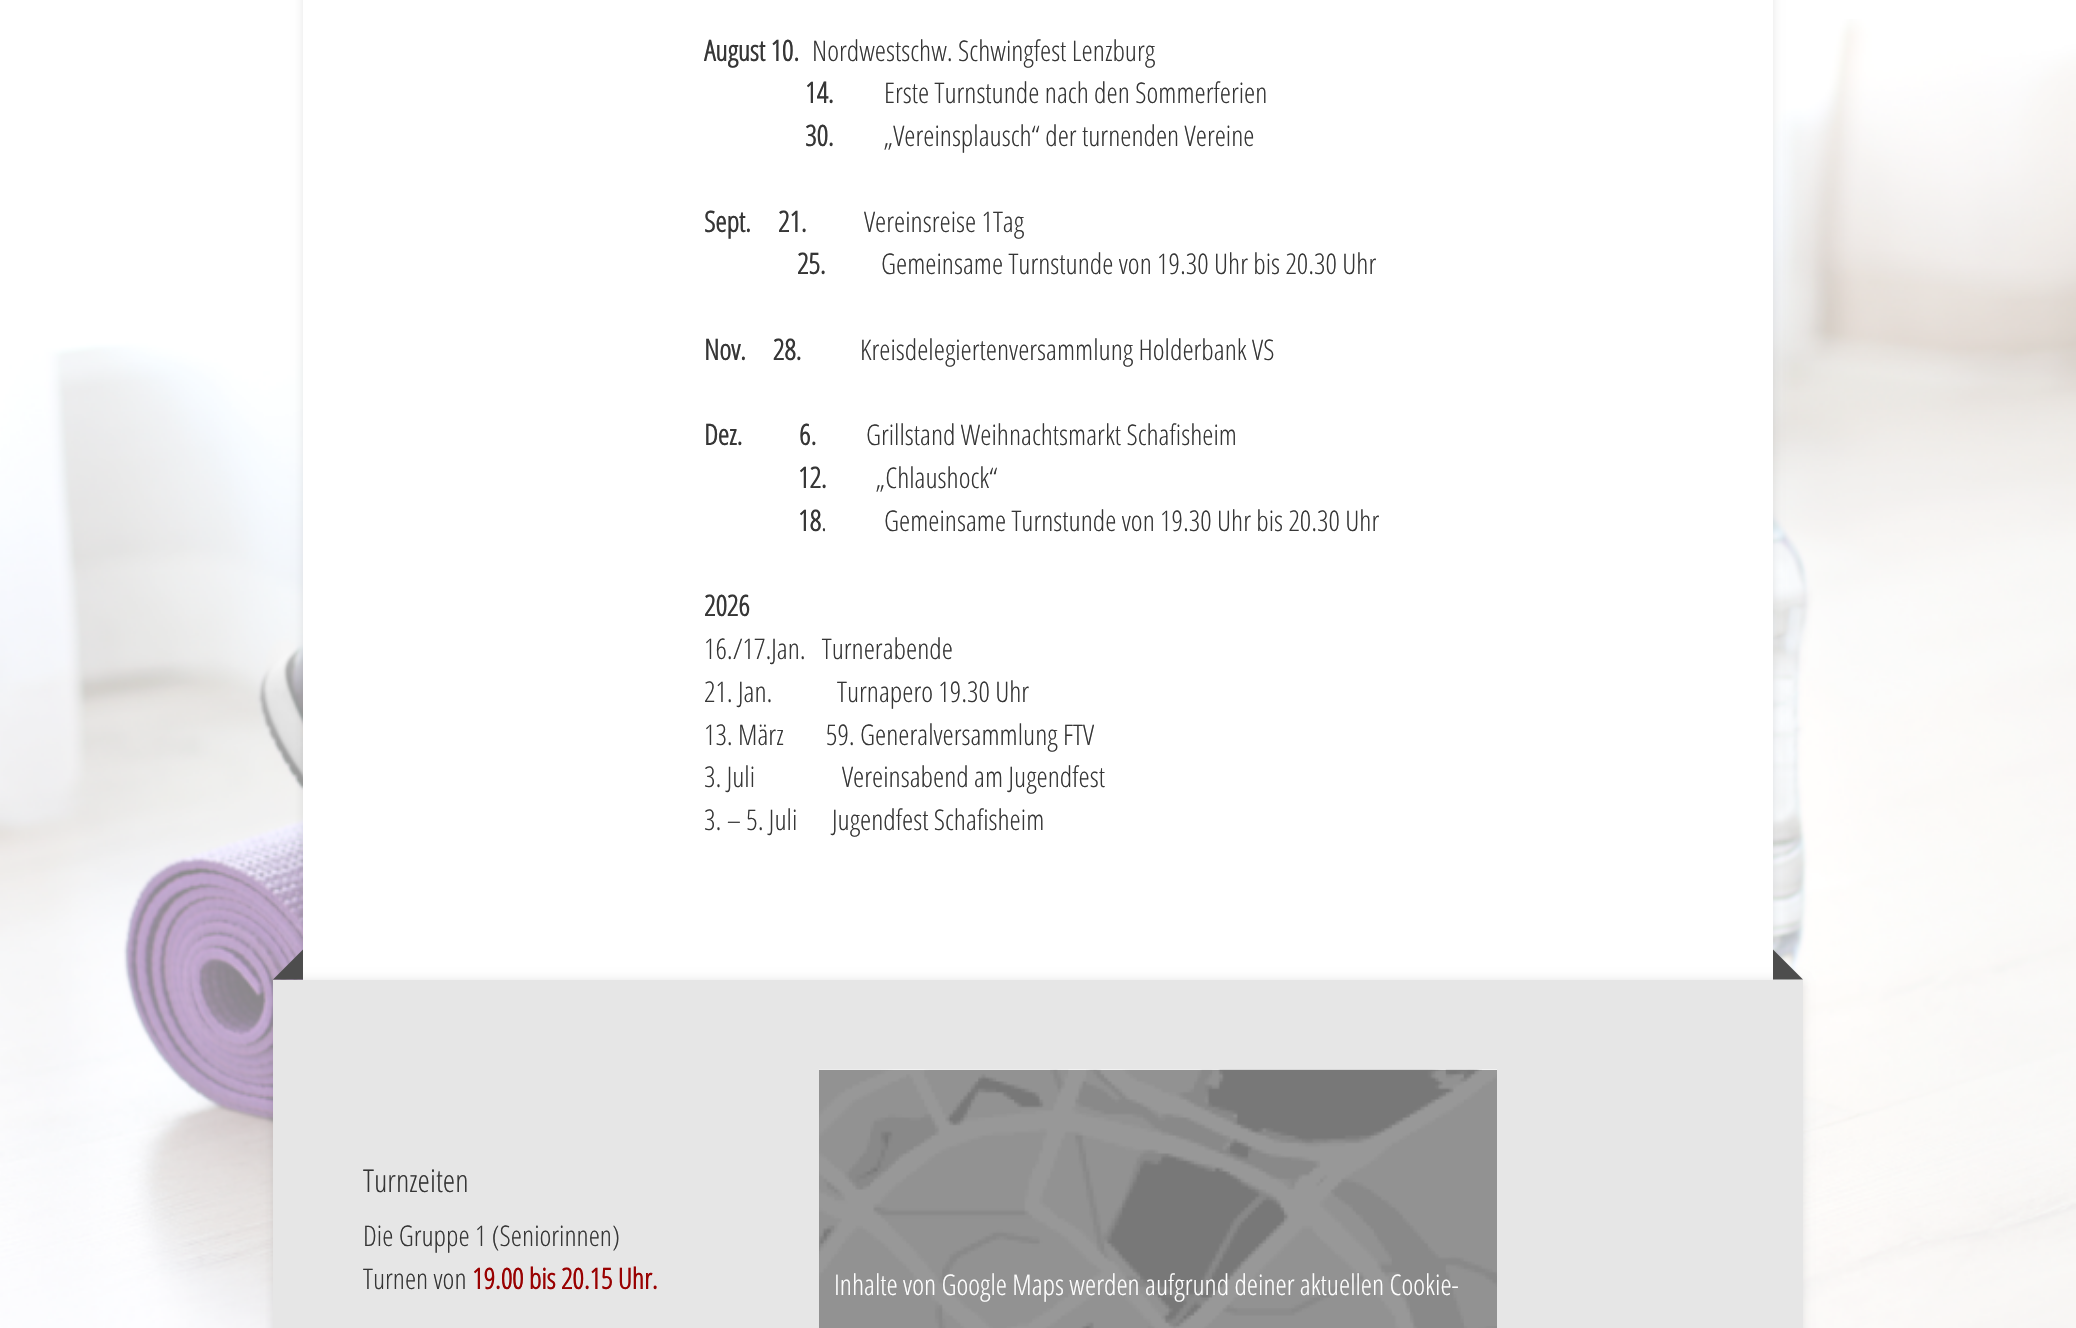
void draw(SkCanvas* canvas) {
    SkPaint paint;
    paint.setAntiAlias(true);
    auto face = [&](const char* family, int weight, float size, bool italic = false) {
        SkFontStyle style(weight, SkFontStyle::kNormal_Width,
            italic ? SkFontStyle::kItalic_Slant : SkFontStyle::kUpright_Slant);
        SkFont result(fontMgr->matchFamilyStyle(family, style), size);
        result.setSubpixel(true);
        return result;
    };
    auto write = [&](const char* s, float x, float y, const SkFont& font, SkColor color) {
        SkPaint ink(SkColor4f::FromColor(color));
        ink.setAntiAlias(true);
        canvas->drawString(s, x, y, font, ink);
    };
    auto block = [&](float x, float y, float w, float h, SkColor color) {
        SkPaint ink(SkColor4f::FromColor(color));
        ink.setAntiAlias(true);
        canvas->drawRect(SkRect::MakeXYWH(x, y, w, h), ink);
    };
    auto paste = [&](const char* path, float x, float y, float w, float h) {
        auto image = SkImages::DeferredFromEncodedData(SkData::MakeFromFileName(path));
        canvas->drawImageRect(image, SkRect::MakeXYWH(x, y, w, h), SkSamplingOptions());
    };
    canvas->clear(SK_ColorWHITE);
    paste("pic1.png", 0, 19, 2076, 1309);
    paint.setColor(SkColorSetARGB(26, 0, 0, 0));
    paint.setMaskFilter(SkMaskFilter::MakeBlur(kNormal_SkBlurStyle, 4.5f));
    canvas->drawRect(SkRect::MakeXYWH(303, -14, 1470, 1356), paint);
    paint.setMaskFilter(nullptr);
    block(303, 0, 1470, 980, SK_ColorWHITE);
    auto kFont1 = face("Open Sans Condensed", 700, 28.5f);
    write("August 10.", 704, 61, kFont1, SkColorSetRGB(54, 54, 54));
    auto kFont2 = face("Open Sans Condensed", 300, 28.5f);
    write("Nordwestschw. Schwingfest Lenzburg", 812, 61, kFont2, SkColorSetRGB(54, 54, 54));
    write("14.", 805, 103, kFont1, SkColorSetRGB(54, 54, 54));
    write("Erste Turnstunde nach den Sommerferien", 884, 103, kFont2, SkColorSetRGB(54, 54, 54));
    write("30.", 805, 146, kFont1, SkColorSetRGB(54, 54, 54));
    write("„Vereinsplausch“ der turnenden Vereine", 884, 146, kFont2, SkColorSetRGB(54, 54, 54));
    write("Sept.", 704, 232, kFont1, SkColorSetRGB(54, 54, 54));
    write("21.", 778, 232, kFont1, SkColorSetRGB(54, 54, 54));
    write("Vereinsreise 1Tag", 864, 232, kFont2, SkColorSetRGB(54, 54, 54));
    write("25.", 797, 274, kFont1, SkColorSetRGB(54, 54, 54));
    write("Gemeinsame Turnstunde von 19.30 Uhr bis 20.30 Uhr", 881, 274, kFont2, SkColorSetRGB(54, 54, 54));
    write("Nov.     28.", 704, 360, kFont1, SkColorSetRGB(54, 54, 54));
    write("Kreisdelegiertenversammlung Holderbank VS", 860, 360, kFont2, SkColorSetRGB(54, 54, 54));
    write("Dez.", 704, 445, kFont1, SkColorSetRGB(54, 54, 54));
    write("6.", 799, 445, kFont1, SkColorSetRGB(54, 54, 54));
    write("Grillstand Weihnachtsmarkt Schafisheim", 866, 445, kFont2, SkColorSetRGB(54, 54, 54));
    write("12.", 798, 488, kFont1, SkColorSetRGB(54, 54, 54));
    write("„Chlaushock“", 876, 488, kFont2, SkColorSetRGB(54, 54, 54));
    write("18", 798, 531, kFont1, SkColorSetRGB(54, 54, 54));
    write(".", 821, 531, kFont2, SkColorSetRGB(54, 54, 54));
    write("Gemeinsame Turnstunde von 19.30 Uhr bis 20.30 Uhr", 884, 531, kFont2, SkColorSetRGB(54, 54, 54));
    write("2026", 704, 616, kFont1, SkColorSetRGB(54, 54, 54));
    write("16./17.Jan.   Turnerabende", 704, 659, kFont2, SkColorSetRGB(54, 54, 54));
    write("21. Jan.", 704, 702, kFont2, SkColorSetRGB(54, 54, 54));
    write("Turnapero 19.30 Uhr", 837, 702, kFont2, SkColorSetRGB(54, 54, 54));
    write("13. März", 704, 745, kFont2, SkColorSetRGB(54, 54, 54));
    write("59. Generalversammlung FTV", 826, 745, kFont2, SkColorSetRGB(54, 54, 54));
    write("3. Juli", 704, 787, kFont2, SkColorSetRGB(54, 54, 54));
    write("Vereinsabend am Jugendfest", 842, 787, kFont2, SkColorSetRGB(54, 54, 54));
    write("3. – 5. Juli", 704, 830, kFont2, SkColorSetRGB(54, 54, 54));
    write("Jugendfest Schafisheim", 832, 830, kFont2, SkColorSetRGB(54, 54, 54));
    paint.setMaskFilter(SkMaskFilter::MakeBlur(kNormal_SkBlurStyle, 4.5f));
    canvas->drawRect(SkRect::MakeXYWH(273, 980, 1530, 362), paint);
    paint.setMaskFilter(nullptr);
    block(273, 980, 1530, 348, SkColorSetRGB(230, 230, 230));
    paint.setColor(SkColorSetRGB(77, 77, 77));
    canvas->drawPath(SkPathBuilder().moveTo(303, 979.5f).lineTo(273, 979.5f).lineTo(303, 949.5f).close().detach(), paint);
    canvas->drawPath(SkPathBuilder().moveTo(1773, 979.5f).lineTo(1773, 949.5f).lineTo(1803, 979.5f).close().detach(), paint);
    auto kFont3 = face("Open Sans Condensed", 300, 31.5f);
    write("Turnzeiten", 363, 1192, kFont3, SkColorSetRGB(54, 54, 54));
    write("Die Gruppe 1 (Seniorinnen)", 363, 1246, kFont2, SkColorSetRGB(54, 54, 54));
    write("Turnen von", 363, 1289, kFont2, SkColorSetRGB(54, 54, 54));
    write("19.00 bis 20.15 Uhr.", 472, 1289, kFont1, SkColorSetRGB(153, 0, 0));
    paste("pic2.png", 819, 1069, 678, 259);
    write("Inhalte von Google Maps werden aufgrund deiner aktuellen Cookie-", 834, 1295, kFont2, SK_ColorWHITE);
}
